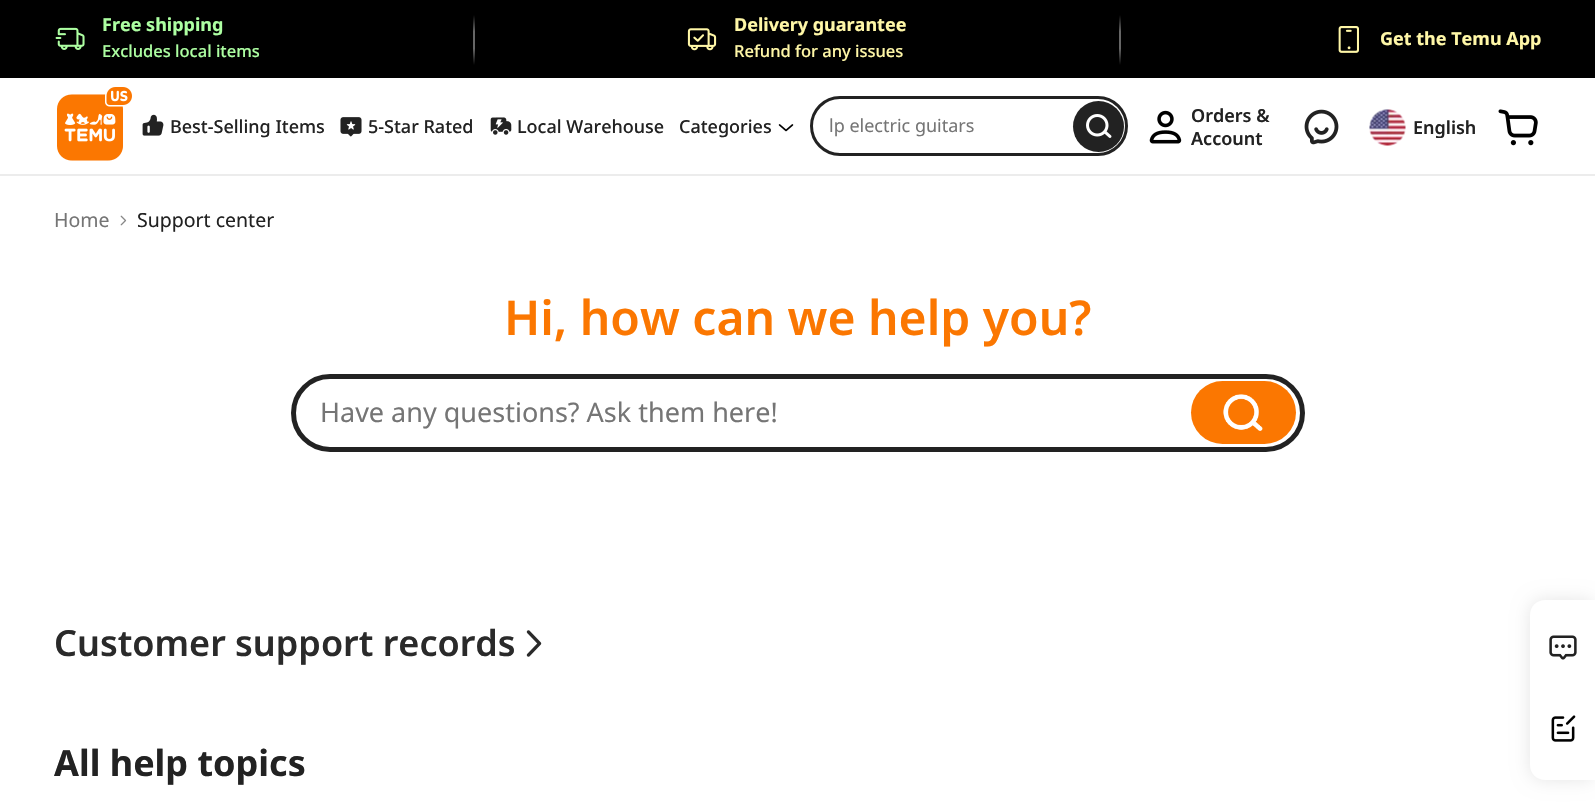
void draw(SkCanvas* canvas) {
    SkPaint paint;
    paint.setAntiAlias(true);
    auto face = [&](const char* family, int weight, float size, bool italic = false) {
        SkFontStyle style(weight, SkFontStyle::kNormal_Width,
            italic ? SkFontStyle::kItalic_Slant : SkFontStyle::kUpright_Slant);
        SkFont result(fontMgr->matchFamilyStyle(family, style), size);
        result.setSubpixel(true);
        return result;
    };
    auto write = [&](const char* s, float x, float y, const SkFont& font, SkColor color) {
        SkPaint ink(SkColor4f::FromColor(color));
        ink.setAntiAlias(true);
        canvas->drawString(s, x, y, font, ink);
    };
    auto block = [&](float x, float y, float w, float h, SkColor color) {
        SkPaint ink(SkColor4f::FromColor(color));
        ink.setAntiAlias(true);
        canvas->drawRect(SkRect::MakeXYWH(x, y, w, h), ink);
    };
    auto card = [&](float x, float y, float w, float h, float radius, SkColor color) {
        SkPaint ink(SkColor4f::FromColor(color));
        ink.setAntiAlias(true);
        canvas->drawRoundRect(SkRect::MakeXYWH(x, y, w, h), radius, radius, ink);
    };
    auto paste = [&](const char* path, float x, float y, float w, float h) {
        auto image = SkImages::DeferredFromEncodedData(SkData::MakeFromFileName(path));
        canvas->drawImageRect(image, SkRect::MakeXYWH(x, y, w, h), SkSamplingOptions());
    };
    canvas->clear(SK_ColorWHITE);
    block(0, 0, 1595, 78, SK_ColorBLACK);
    paste("pic1.png", 55, 27, 30, 23);
    auto kFont1 = face("Noto Sans", 700, 18);
    write("Free shipping", 102, 31, kFont1, SkColorSetRGB(173, 255, 162));
    auto kFont2 = face("Noto Sans", 500, 16.5f);
    write("Excludes local items", 102, 57, kFont2, SkColorSetRGB(173, 255, 162));
    {
        const SkColor colors[] = {SK_ColorBLACK, SkColorSetRGB(102, 102, 102), SkColorSetRGB(102, 102, 102), SK_ColorBLACK};
        const float stops[] = {0, 0.33f, 0.67f, 1};
        const SkPoint ends[] = {{473, 15}, {473, 65}};
        paint.setShader(SkGradientShader::MakeLinear(ends, colors, stops, 4, SkTileMode::kClamp));
        paint.setAlpha(255);
    }
    canvas->drawRect(SkRect::MakeXYWH(473, 15, 2, 50), paint);
    paste("pic2.png", 687, 28, 30, 23);
    write("Delivery guarantee", 734, 31, kFont1, SkColorSetRGB(255, 247, 167));
    write("Refund for any issues", 734, 57, kFont2, SkColorSetRGB(255, 247, 167));
    {
        const SkColor colors[] = {SK_ColorBLACK, SkColorSetRGB(102, 102, 102), SkColorSetRGB(102, 102, 102), SK_ColorBLACK};
        const float stops[] = {0, 0.33f, 0.67f, 1};
        const SkPoint ends[] = {{1120, 15}, {1120, 65}};
        paint.setShader(SkGradientShader::MakeLinear(ends, colors, stops, 4, SkTileMode::kClamp));
        paint.setAlpha(255);
    }
    canvas->drawRect(SkRect::MakeXYWH(1119, 15, 2, 50), paint);
    paste("pic3.png", 1338, 26, 21, 27);
    write("Get the Temu App", 1380, 45, kFont1, SkColorSetRGB(255, 247, 167));
    block(0, 174, 1595, 2, SkColorSetRGB(236, 236, 236));
    paste("pic4.png", 57, 87, 75, 74);
    paste("pic5.png", 142, 114, 22, 22);
    auto kFont3 = face("Noto Sans", 500, 18);
    write("Best-Selling Items", 170, 133, kFont3, SkColorSetRGB(34, 34, 34));
    paste("pic6.png", 340, 117, 22, 20);
    write("5-Star Rated", 368, 133, kFont3, SkColorSetRGB(34, 34, 34));
    paste("pic7.png", 490, 117, 22, 18);
    write("Local Warehouse", 517, 133, kFont3, SkColorSetRGB(34, 34, 34));
    write("Categories", 679, 133, kFont3, SkColorSetRGB(34, 34, 34));
    paste("pic8.png", 778, 124, 16, 8);
    paint.setStyle(SkPaint::kStroke_Style);
    paint.setStrokeWidth(3);
    paint.setShader(nullptr);
    paint.setColor(SkColorSetRGB(34, 34, 34));
    canvas->drawRoundRect(SkRect::MakeXYWH(811.5f, 97.5f, 315, 57), 28.5f, 28.5f, paint);
    auto kFont4 = face("Noto Sans", 400, 18);
    write("lp electric guitars", 829, 132, kFont4, SkColorSetRGB(117, 117, 117));
    paint.setStyle(SkPaint::kFill_Style);
    canvas->drawCircle(1098.5f, 126.5f, 25.5f, paint);
    paste("pic9.png", 1086, 114, 26, 24);
    paste("pic10.png", 1149, 110, 33, 34);
    auto kFont5 = face("Noto Sans", 600, 18);
    write("Orders &", 1191, 122, kFont5, SkColorSetRGB(34, 34, 34));
    write("Account", 1191, 145, kFont5, SkColorSetRGB(34, 34, 34));
    paste("pic11.png", 1304, 109, 35, 36);
    paste("pic12.png", 1369, 109, 37, 37);
    canvas->save();
    canvas->clipRect(SkRect::MakeXYWH(1413, 116, 63, 22));
    write("English", 1413, 134, kFont5, SkColorSetRGB(34, 34, 34));
    canvas->restore();
    paste("pic13.png", 1498, 109, 40, 37);
    auto kFont6 = face("Noto Sans", 400, 19.5f);
    write("Home", 54, 227, kFont6, SkColorSetRGB(117, 117, 117));
    paste("pic14.png", 120, 215, 7, 11);
    write("Support center", 137, 227, kFont6, SkColorSetRGB(34, 34, 34));
    auto kFont7 = face("Noto Sans", 600, 48);
    write("Hi, how can we help you?", 504, 335, kFont7, SkColorSetRGB(251, 119, 1));
    paint.setStyle(SkPaint::kStroke_Style);
    paint.setStrokeWidth(5);
    canvas->drawRoundRect(SkRect::MakeXYWH(293.5f, 376.5f, 1009, 73), 36.5f, 36.5f, paint);
    auto kFont8 = face("Noto Sans", 400, 27);
    write("Have any questions? Ask them here!", 320, 422, kFont8, SkColorSetRGB(117, 117, 117));
    card(1191, 381, 105, 63, 31.5f, SkColorSetRGB(251, 119, 1));
    paste("pic15.png", 1223, 394, 40, 37);
    auto kFont9 = face("Noto Sans", 600, 36);
    write("Customer support records", 54, 656, kFont9, SkColorSetRGB(42, 42, 42));
    paste("pic16.png", 526, 630, 16, 27);
    auto kFont10 = face("Noto Sans", 700, 36);
    write("All help topics", 54, 776, kFont10, SkColorSetRGB(34, 34, 34));
    paint.setStyle(SkPaint::kFill_Style);
    paint.setColor(SkColorSetARGB(26, 0, 0, 0));
    paint.setMaskFilter(SkMaskFilter::MakeBlur(kNormal_SkBlurStyle, 9));
    canvas->drawRoundRect(SkRect::MakeXYWH(1530, 600, 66, 180), 15, 15, paint);
    paint.setMaskFilter(nullptr);
    paint.setColor(SK_ColorWHITE);
    canvas->drawPath(SkPathBuilder().moveTo(1545, 600).lineTo(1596, 600).lineTo(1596, 780).lineTo(1545, 780).cubicTo(1536.5f, 780, 1530, 773.5f, 1530, 765).lineTo(1530, 615).cubicTo(1530, 606.5f, 1536.5f, 600, 1545, 600).close().detach(), paint);
    paste("pic17.png", 1549, 635, 28, 25);
    paste("pic18.png", 1551, 715, 25, 27);
}
